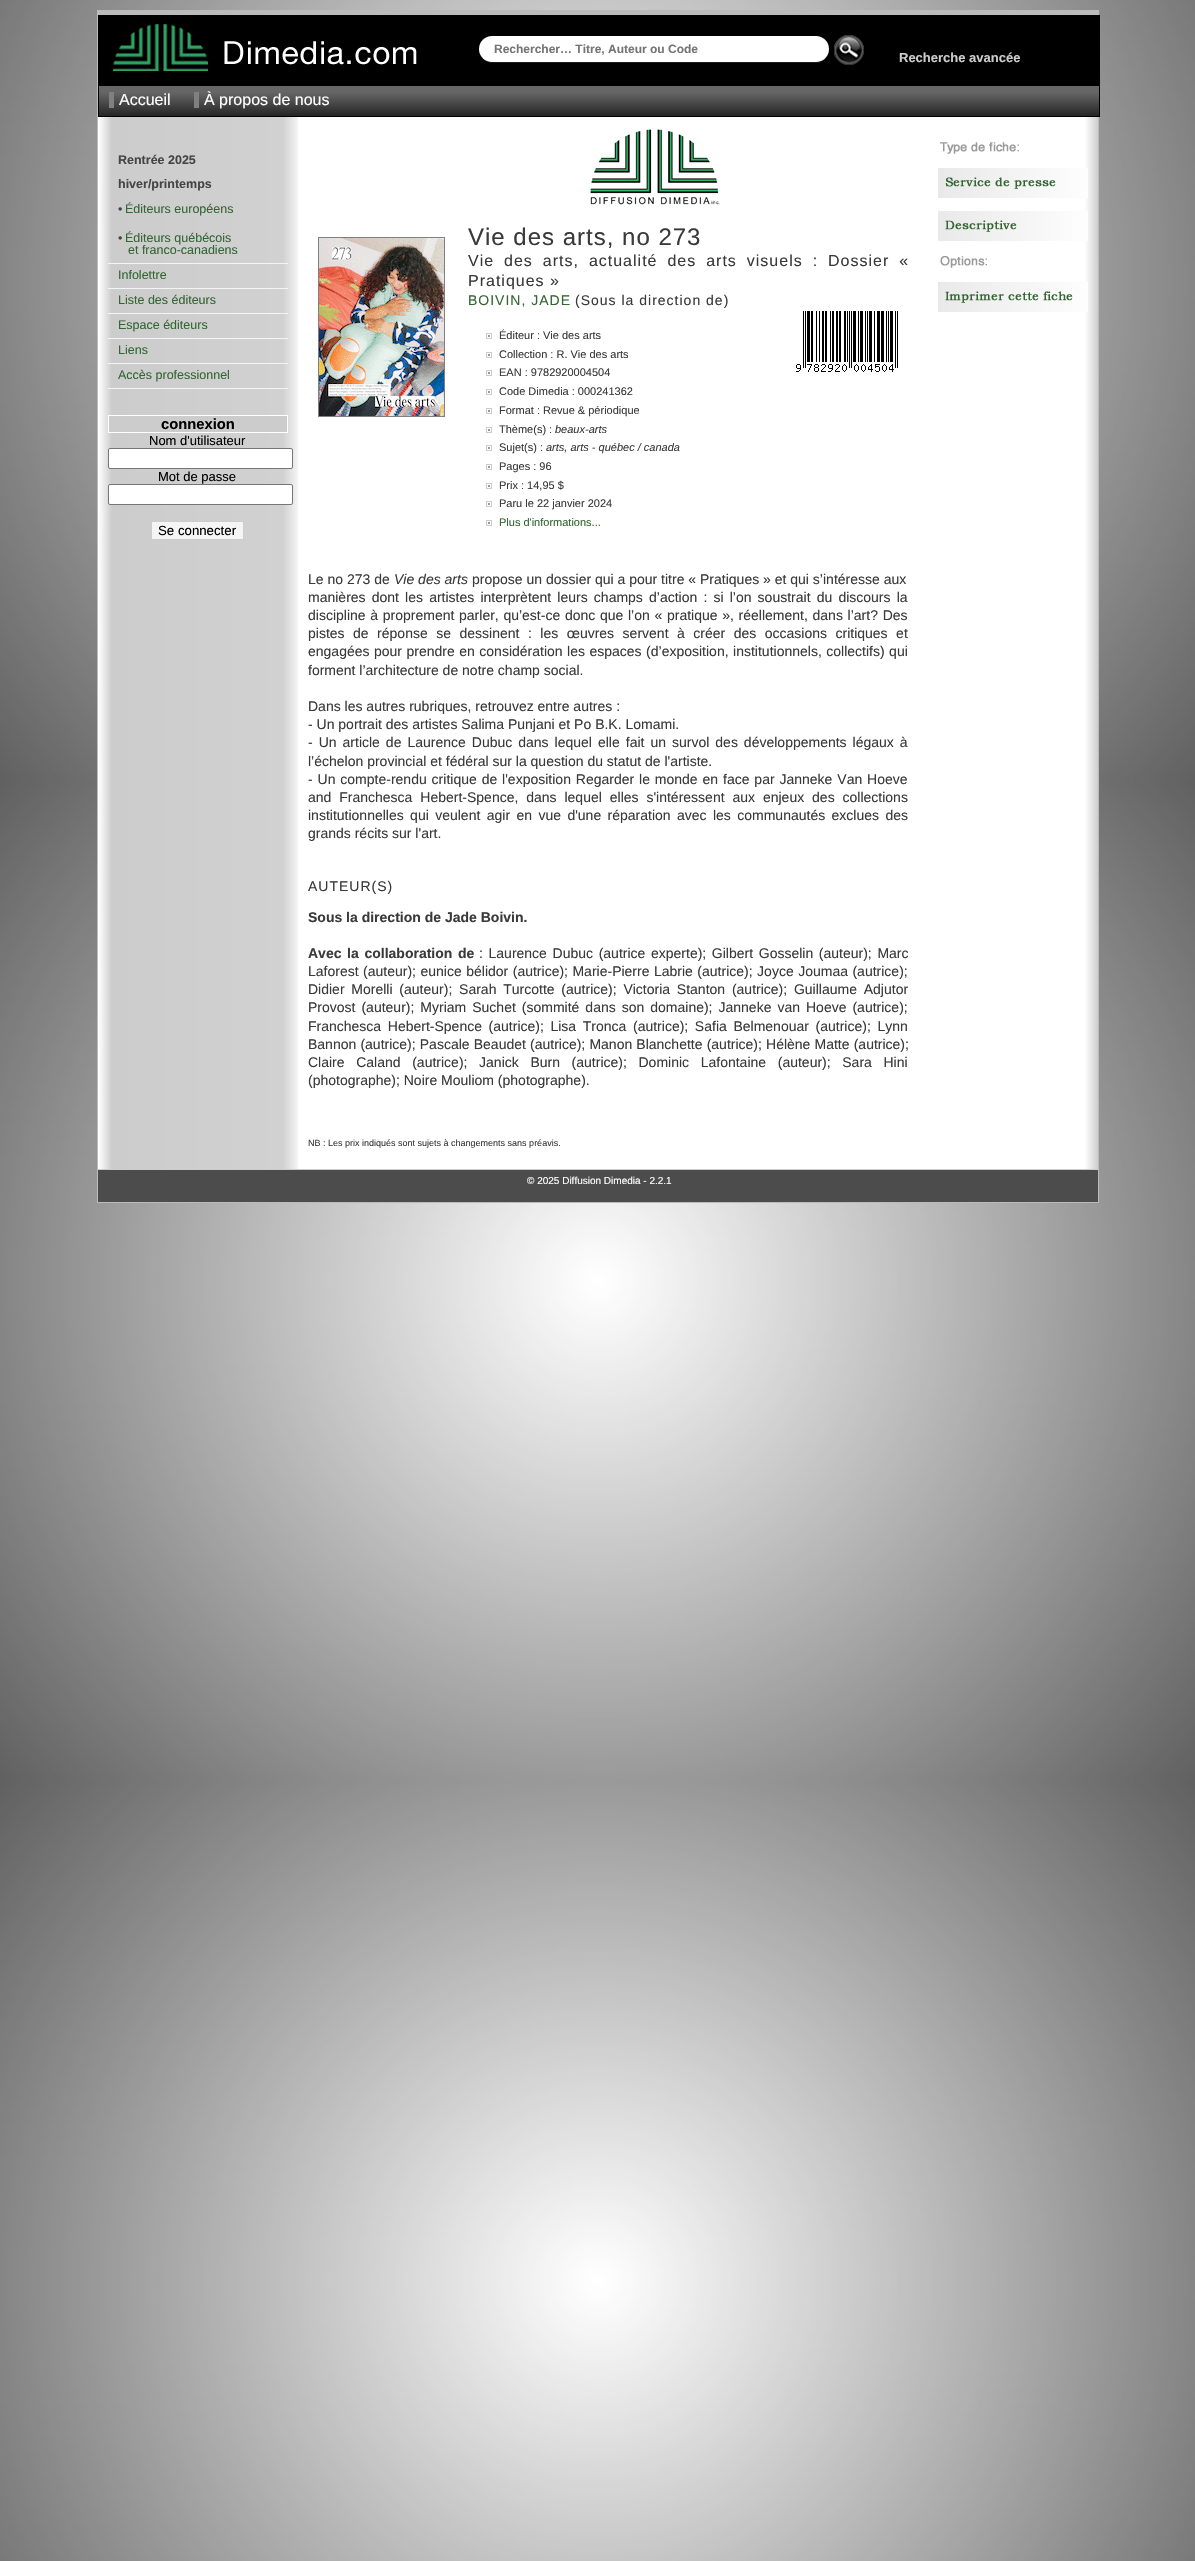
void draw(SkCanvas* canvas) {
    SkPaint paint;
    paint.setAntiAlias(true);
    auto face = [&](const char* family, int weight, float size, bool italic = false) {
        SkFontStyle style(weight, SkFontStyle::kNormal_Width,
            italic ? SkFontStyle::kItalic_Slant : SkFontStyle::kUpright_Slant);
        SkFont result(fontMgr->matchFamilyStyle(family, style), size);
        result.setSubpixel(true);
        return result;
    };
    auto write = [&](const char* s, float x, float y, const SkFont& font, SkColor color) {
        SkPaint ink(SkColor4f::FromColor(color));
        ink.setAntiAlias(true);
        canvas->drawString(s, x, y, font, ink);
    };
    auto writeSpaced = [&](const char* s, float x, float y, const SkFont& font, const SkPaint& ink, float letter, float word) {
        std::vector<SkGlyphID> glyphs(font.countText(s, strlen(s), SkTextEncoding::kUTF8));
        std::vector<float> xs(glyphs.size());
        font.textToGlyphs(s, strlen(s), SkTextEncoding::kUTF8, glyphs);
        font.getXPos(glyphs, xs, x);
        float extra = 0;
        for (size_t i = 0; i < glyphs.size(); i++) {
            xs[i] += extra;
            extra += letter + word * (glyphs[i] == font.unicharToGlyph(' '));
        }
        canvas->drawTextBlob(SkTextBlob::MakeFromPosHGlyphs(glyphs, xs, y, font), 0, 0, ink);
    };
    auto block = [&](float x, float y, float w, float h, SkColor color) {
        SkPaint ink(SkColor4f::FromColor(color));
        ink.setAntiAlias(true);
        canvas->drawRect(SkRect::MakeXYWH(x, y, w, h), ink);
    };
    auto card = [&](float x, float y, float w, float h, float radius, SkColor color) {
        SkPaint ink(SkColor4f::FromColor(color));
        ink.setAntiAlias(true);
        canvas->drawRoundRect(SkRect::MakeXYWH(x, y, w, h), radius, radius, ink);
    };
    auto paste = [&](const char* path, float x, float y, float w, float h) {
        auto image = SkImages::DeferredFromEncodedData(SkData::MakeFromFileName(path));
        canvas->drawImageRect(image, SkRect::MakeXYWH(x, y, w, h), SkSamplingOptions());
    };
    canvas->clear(SK_ColorWHITE);
    paste("pic1.png", 0, 0, 1195, 2561);
    paste("pic2.png", 98, 117, 1000, 1052);
    block(97, 10, 1002, 5, SkColorSetRGB(187, 187, 187));
    block(1098, 10, 1, 1193, SkColorSetRGB(187, 187, 187));
    block(97, 1202, 1002, 1, SkColorSetRGB(187, 187, 187));
    block(97, 10, 1, 1193, SkColorSetRGB(187, 187, 187));
    block(98, 15, 1002, 102, SK_ColorBLACK);
    paste("pic3.png", 99, 24, 1000, 92);
    paint.setColor(SkColorSetRGB(26, 26, 26));
    canvas->drawPath(SkPathBuilder().moveTo(479, 49).cubicTo(479, 57, 485, 63, 492, 63).lineTo(819, 63).cubicTo(825, 61, 829, 56, 829, 49).cubicTo(829, 56, 823, 62, 816, 62).lineTo(492, 62).cubicTo(485, 62, 479, 56, 479, 49).close().detach(), paint);
    card(479, 36, 350, 26, 13, SK_ColorWHITE);
    auto kFont1 = face("Liberation Sans", 700, 12);
    write("Rechercher… Titre, Auteur ou Code", 494, 53, kFont1, SkColorSetRGB(117, 117, 117));
    paste("pic4.png", 834, 35, 30, 30);
    auto kFont2 = face("Liberation Sans", 700, 13);
    write("Recherche avancée", 899, 62, kFont2, SkColorSetRGB(204, 204, 204));
    auto kFont3 = face("Liberation Sans", 400, 16);
    write("Accueil", 119, 105, kFont3, SK_ColorWHITE);
    block(109, 92, 5, 16, SkColorSetRGB(128, 128, 128));
    write("À propos de nous", 204, 105, kFont3, SK_ColorWHITE);
    block(194, 92, 5, 16, SkColorSetRGB(128, 128, 128));
    block(108, 263, 180, 1, SkColorSetRGB(244, 245, 245));
    auto kFont4 = face("Liberation Sans", 700, 12.5f);
    write("Rentrée 2025", 118, 164, kFont4, SkColorSetRGB(68, 68, 68));
    write("hiver/printemps", 118, 188, kFont4, SkColorSetRGB(68, 68, 68));
    auto kFont5 = face("Liberation Sans", 400, 12.5f);
    write("•", 118, 213, kFont5, SkColorSetRGB(68, 68, 68));
    write("Éditeurs européens", 125, 213, kFont5, SkColorSetRGB(51, 102, 51));
    write("•", 118, 242, kFont5, SkColorSetRGB(68, 68, 68));
    write("Éditeurs québécois", 125, 242, kFont5, SkColorSetRGB(51, 102, 51));
    write("et franco-canadiens", 128, 254, kFont5, SkColorSetRGB(51, 102, 51));
    block(108, 288, 180, 1, SkColorSetRGB(244, 245, 245));
    write("Infolettre", 118, 279, kFont5, SkColorSetRGB(51, 102, 51));
    block(108, 313, 180, 1, SkColorSetRGB(244, 245, 245));
    write("Liste des éditeurs", 118, 304, kFont5, SkColorSetRGB(51, 102, 51));
    block(108, 338, 180, 1, SkColorSetRGB(244, 245, 245));
    write("Espace éditeurs", 118, 329, kFont5, SkColorSetRGB(51, 102, 51));
    block(108, 363, 180, 1, SkColorSetRGB(244, 245, 245));
    write("Liens", 118, 354, kFont5, SkColorSetRGB(51, 102, 51));
    block(108, 388, 180, 1, SkColorSetRGB(244, 245, 245));
    write("Accès professionnel", 118, 379, kFont5, SkColorSetRGB(51, 102, 51));
    paint.setColor(SkColorSetRGB(204, 204, 204));
    canvas->drawRect(SkRect::MakeXYWH(108.5f, 415.5f, 179, 17), paint);
    paint.setStyle(SkPaint::kStroke_Style);
    paint.setStrokeWidth(1);
    paint.setColor(SK_ColorWHITE);
    canvas->drawRect(SkRect::MakeXYWH(108.5f, 415.5f, 179, 17), paint);
    auto kFont6 = face("Liberation Sans", 700, 14.75f);
    write("connexion", 161, 429, kFont6, SK_ColorBLACK);
    auto kFont7 = face("Liberation Sans", 400, 13);
    write("Nom d'utilisateur", 149, 445, kFont7, SK_ColorBLACK);
    paint.setStyle(SkPaint::kFill_Style);
    canvas->drawRoundRect(SkRect::MakeXYWH(108.5f, 448.5f, 184, 20), 1.5f, 1.5f, paint);
    paint.setStyle(SkPaint::kStroke_Style);
    paint.setColor(SkColorSetRGB(118, 118, 118));
    canvas->drawRoundRect(SkRect::MakeXYWH(108.5f, 448.5f, 184, 20), 1.5f, 1.5f, paint);
    write("Mot de passe", 158, 481, kFont7, SK_ColorBLACK);
    paint.setStyle(SkPaint::kFill_Style);
    paint.setColor(SK_ColorWHITE);
    canvas->drawRoundRect(SkRect::MakeXYWH(108.5f, 484.5f, 184, 20), 1.5f, 1.5f, paint);
    paint.setStyle(SkPaint::kStroke_Style);
    paint.setColor(SkColorSetRGB(118, 118, 118));
    canvas->drawRoundRect(SkRect::MakeXYWH(108.5f, 484.5f, 184, 20), 1.5f, 1.5f, paint);
    paint.setStyle(SkPaint::kFill_Style);
    paint.setColor(SkColorSetRGB(245, 245, 245));
    canvas->drawRect(SkRect::MakeXYWH(151.5f, 521.5f, 92, 18), paint);
    paint.setStyle(SkPaint::kStroke_Style);
    paint.setColor(SkColorSetRGB(204, 204, 204));
    canvas->drawRect(SkRect::MakeXYWH(151.5f, 521.5f, 92, 18), paint);
    auto kFont8 = face("Liberation Sans", 400, 13.25f);
    write("Se connecter", 158, 535, kFont8, SK_ColorBLACK);
    paint.setColor(SkColorSetRGB(128, 128, 128));
    canvas->drawRect(SkRect::MakeXYWH(318.5f, 237.5f, 126, 179), paint);
    paste("pic5.png", 319, 238, 125, 178);
    paste("pic6.png", 590, 129, 130, 76);
    auto kFont9 = face("Liberation Sans", 400, 24);
    paint.setStyle(SkPaint::kFill_Style);
    paint.setColor(SkColorSetRGB(58, 58, 58));
    writeSpaced("Vie des arts, no 273", 468, 245, kFont9, paint, 1, 0);
    writeSpaced("Vie des arts, actualité des arts visuels : Dossier «", 468, 266, kFont3, paint, 1, 4.5f);
    writeSpaced("Pratiques »", 468, 286, kFont3, paint, 1, 0);
    auto kFont10 = face("Liberation Sans", 400, 14);
    paint.setColor(SkColorSetRGB(51, 102, 51));
    writeSpaced("BOIVIN, JADE", 468, 305, kFont10, paint, 1, 0);
    paint.setColor(SkColorSetRGB(58, 58, 58));
    writeSpaced("(Sous la direction de)", 575, 305, kFont10, paint, 1, 0);
    paste("pic7.png", 486, 333, 6, 6);
    auto kFont11 = face("Liberation Sans", 400, 11);
    write("Éditeur : Vie des arts", 499, 339, kFont11, SkColorSetRGB(58, 58, 58));
    paste("pic7.png", 486, 352, 6, 6);
    write("Collection : R. Vie des arts", 499, 358, kFont11, SkColorSetRGB(58, 58, 58));
    paste("pic7.png", 486, 370, 6, 6);
    write("EAN : 9782920004504", 499, 376, kFont11, SkColorSetRGB(58, 58, 58));
    paste("pic7.png", 486, 389, 6, 6);
    write("Code Dimedia : 000241362", 499, 395, kFont11, SkColorSetRGB(58, 58, 58));
    paste("pic7.png", 486, 408, 6, 6);
    write("Format : Revue & périodique", 499, 414, kFont11, SkColorSetRGB(58, 58, 58));
    paste("pic7.png", 486, 427, 6, 6);
    write("Thème(s) :", 499, 433, kFont11, SkColorSetRGB(58, 58, 58));
    auto kFont12 = face("Liberation Sans", 400, 11, true);
    write("beaux-arts", 555, 433, kFont12, SkColorSetRGB(58, 58, 58));
    paste("pic7.png", 486, 445, 6, 6);
    write("Sujet(s) :", 499, 451, kFont11, SkColorSetRGB(58, 58, 58));
    write("arts, arts - québec / canada", 546, 451, kFont12, SkColorSetRGB(58, 58, 58));
    paste("pic7.png", 486, 464, 6, 6);
    write("Pages : 96", 499, 470, kFont11, SkColorSetRGB(58, 58, 58));
    paste("pic7.png", 486, 483, 6, 6);
    write("Prix : 14,95 $", 499, 489, kFont11, SkColorSetRGB(58, 58, 58));
    paste("pic7.png", 486, 501, 6, 6);
    write("Paru le 22 janvier 2024", 499, 507, kFont11, SkColorSetRGB(58, 58, 58));
    paste("pic7.png", 486, 520, 6, 6);
    write("Plus d'informations...", 499, 526, kFont11, SkColorSetRGB(51, 102, 51));
    paste("pic8.png", 796, 311, 102, 61);
    write("Le no 273 de", 308, 584, kFont10, SkColorSetRGB(58, 58, 58));
    auto kFont13 = face("Liberation Sans", 400, 14, true);
    write("Vie des arts", 394, 584, kFont13, SkColorSetRGB(58, 58, 58));
    write("propose un dossier qui a pour titre « Pratiques » et qui s’intéresse aux", 472, 584, kFont10, SkColorSetRGB(58, 58, 58));
    writeSpaced("manières dont les artistes interprètent leurs champs d’action : si l’on soustrait du discours la", 308, 602, kFont10, paint, 0, 2.25f);
    writeSpaced("discipline à proprement parler, qu’est-ce donc que l’on « pratique », réellement, dans l’art? Des", 308, 620, kFont10, paint, 0, 0.8f);
    writeSpaced("pistes de réponse se dessinent : les œuvres servent à créer des occasions critiques et", 308, 638, kFont10, paint, 0, 4.6f);
    writeSpaced("engagées pour prendre en considération les espaces (d’exposition, institutionnels, collectifs) qui", 308, 656, kFont10, paint, 0, 0.6f);
    write("forment l’architecture de notre champ social.", 308, 675, kFont10, SkColorSetRGB(58, 58, 58));
    write("Dans les autres rubriques, retrouvez entre autres :", 308, 711, kFont10, SkColorSetRGB(58, 58, 58));
    write("- Un portrait des artistes Salima Punjani et Po B.K. Lomami.", 308, 729, kFont10, SkColorSetRGB(58, 58, 58));
    writeSpaced("- Un article de Laurence Dubuc dans lequel elle fait un survol des développements légaux à", 308, 747, kFont10, paint, 0, 2.1f);
    write("l’échelon provincial et fédéral sur la question du statut de l'artiste.", 308, 766, kFont10, SkColorSetRGB(58, 58, 58));
    writeSpaced("- Un compte-rendu critique de l'exposition Regarder le monde en face par Janneke Van Hoeve", 308, 784, kFont10, paint, 0, 1);
    writeSpaced("and Franchesca Hebert-Spence, dans lequel elles s'intéressent aux enjeux des collections", 308, 802, kFont10, paint, 0, 4);
    writeSpaced("institutionnelles qui veulent agir en vue d'une réparation avec les communautés exclues des", 308, 820, kFont10, paint, 0, 2.5f);
    write("grands récits sur l'art.", 308, 838, kFont10, SkColorSetRGB(58, 58, 58));
    writeSpaced("AUTEUR(S)", 308, 891, kFont10, paint, 1, 0);
    auto kFont14 = face("Liberation Sans", 700, 14);
    write("Sous la direction de Jade Boivin.", 308, 922, kFont14, SkColorSetRGB(58, 58, 58));
    writeSpaced("Avec la collaboration de", 308, 958, kFont14, paint, 0, 1.75f);
    writeSpaced(": Laurence Dubuc (autrice experte); Gilbert Gosselin (auteur); Marc", 479, 958, kFont10, paint, 0, 1.75f);
    writeSpaced("Laforest (auteur); eunice bélidor (autrice); Marie-Pierre Labrie (autrice); Joyce Joumaa (autrice);", 308, 976, kFont10, paint, 0, 0.6f);
    writeSpaced("Didier Morelli (auteur); Sarah Turcotte (autrice); Victoria Stanton (autrice); Guillaume Adjutor", 308, 994, kFont10, paint, 0, 2.9f);
    writeSpaced("Provost (auteur); Myriam Suchet (sommité dans son domaine); Janneke van Hoeve (autrice);", 308, 1012, kFont10, paint, 0, 2.1f);
    writeSpaced("Franchesca Hebert-Spence (autrice); Lisa Tronca (autrice); Safia Belmenouar (autrice); Lynn", 308, 1031, kFont10, paint, 0, 2.75f);
    writeSpaced("Bannon (autrice); Pascale Beaudet (autrice); Manon Blanchette (autrice); Hélène Matte (autrice);", 308, 1049, kFont10, paint, 0, 0.25f);
    writeSpaced("Claire Caland (autrice); Janick Burn (autrice); Dominic Lafontaine (auteur); Sara Hini", 308, 1067, kFont10, paint, 0, 7.75f);
    write("(photographe); Noire Mouliom (photographe).", 308, 1085, kFont10, SkColorSetRGB(58, 58, 58));
    auto kFont15 = face("Liberation Sans", 400, 9);
    write("NB : Les prix indiqués sont sujets à changements sans préavis.", 308, 1146, kFont15, SkColorSetRGB(58, 58, 58));
    paste("pic9.png", 940, 142, 79, 12);
    paste("pic10.png", 938, 168, 150, 30);
    paste("pic11.png", 938, 211, 150, 30);
    paste("pic12.png", 940, 256, 47, 12);
    paste("pic13.png", 938, 282, 150, 30);
    block(98, 1170, 1000, 32, SkColorSetRGB(76, 76, 76));
    block(98, 1169, 1000, 1, SkColorSetRGB(204, 204, 204));
    auto kFont16 = face("Liberation Sans", 400, 10);
    write("© 2025 Diffusion Dimedia - 2.2.1", 527, 1184, kFont16, SK_ColorWHITE);
}
